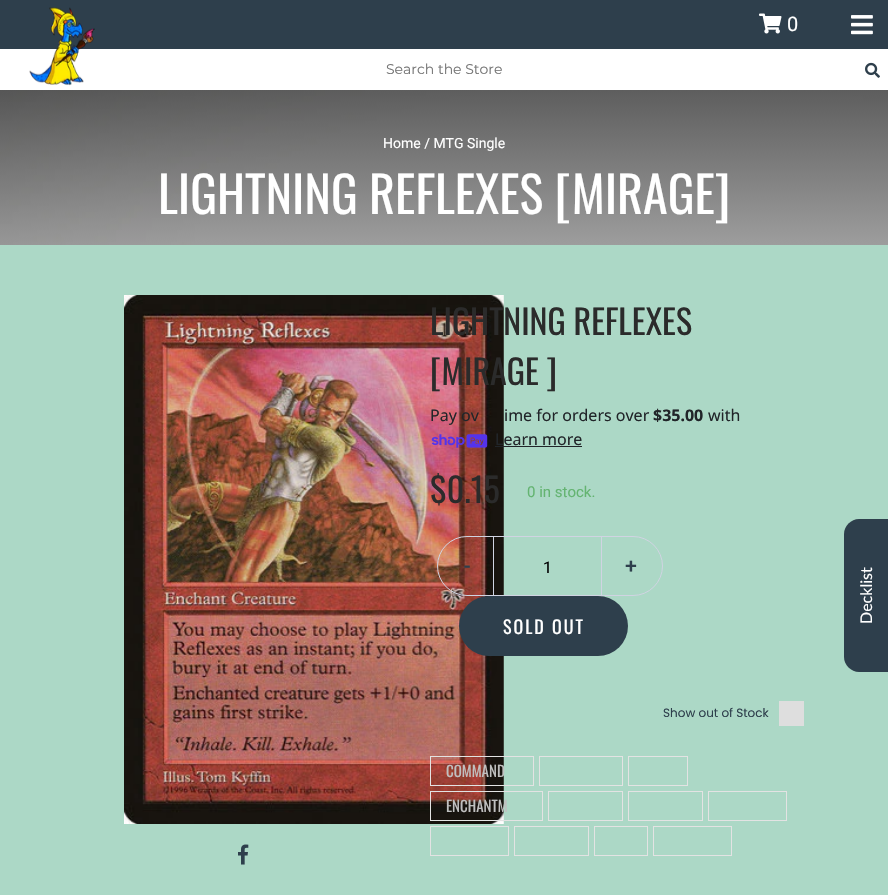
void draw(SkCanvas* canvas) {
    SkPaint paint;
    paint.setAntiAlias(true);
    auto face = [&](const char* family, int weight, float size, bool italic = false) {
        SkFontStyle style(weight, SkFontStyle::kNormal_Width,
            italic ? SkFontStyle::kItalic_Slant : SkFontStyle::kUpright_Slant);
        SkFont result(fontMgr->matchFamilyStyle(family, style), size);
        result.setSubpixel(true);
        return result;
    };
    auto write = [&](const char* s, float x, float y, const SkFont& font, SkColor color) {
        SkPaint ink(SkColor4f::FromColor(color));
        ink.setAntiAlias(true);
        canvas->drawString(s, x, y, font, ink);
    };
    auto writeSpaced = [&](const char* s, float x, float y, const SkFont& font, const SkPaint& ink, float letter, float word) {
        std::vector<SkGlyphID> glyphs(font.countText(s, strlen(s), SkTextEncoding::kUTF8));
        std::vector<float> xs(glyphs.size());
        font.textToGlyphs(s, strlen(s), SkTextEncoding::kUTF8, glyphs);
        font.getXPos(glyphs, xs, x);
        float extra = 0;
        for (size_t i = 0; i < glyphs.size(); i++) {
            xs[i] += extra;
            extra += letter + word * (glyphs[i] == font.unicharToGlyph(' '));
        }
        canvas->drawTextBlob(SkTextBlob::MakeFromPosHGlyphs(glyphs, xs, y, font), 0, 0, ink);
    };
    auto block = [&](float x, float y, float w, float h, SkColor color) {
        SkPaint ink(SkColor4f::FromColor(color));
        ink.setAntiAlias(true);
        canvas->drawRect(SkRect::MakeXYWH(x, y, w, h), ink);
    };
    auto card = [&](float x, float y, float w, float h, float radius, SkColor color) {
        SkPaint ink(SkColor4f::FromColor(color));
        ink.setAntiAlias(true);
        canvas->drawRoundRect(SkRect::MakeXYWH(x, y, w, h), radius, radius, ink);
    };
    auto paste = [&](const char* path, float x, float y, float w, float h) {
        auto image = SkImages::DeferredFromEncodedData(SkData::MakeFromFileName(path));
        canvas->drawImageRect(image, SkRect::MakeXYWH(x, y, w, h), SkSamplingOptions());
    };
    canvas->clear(SkColorSetRGB(172, 216, 198));
    block(0, 0, 888, 49, SkColorSetRGB(46, 63, 76));
    block(0, 49, 888, 41, SK_ColorWHITE);
    paste("pic1.png", 29, 7, 66, 79);
    paste("pic2.png", 851, 15, 22, 20);
    paste("pic3.png", 759, 13, 23, 21);
    auto kFont1 = face("Roboto", 400, 20);
    write("0", 787, 31, kFont1, SK_ColorWHITE);
    auto kFont2 = face("Montserrat", 400, 14);
    write("Search the Store", 386, 74, kFont2, SkColorSetRGB(117, 117, 117));
    paste("pic4.png", 865, 62, 15, 16);
    paste("pic5.png", 0, 90, 888, 155);
    auto kFont3 = face("Roboto", 400, 14);
    write("Home / MTG Single", 383, 148, kFont3, SK_ColorWHITE);
    auto kFont4 = face("Oswald", 400, 50);
    write("LIGHTNING REFLEXES [MIRAGE]", 158, 214, kFont4, SK_ColorWHITE);
    paste("pic6.png", 124, 295, 380, 529);
    paste("pic7.png", 238, 844, 11, 21);
    auto kFont5 = face("Oswald", 400, 34);
    write("LIGHTNING REFLEXES", 430, 335, kFont5, SkColorSetRGB(43, 43, 43));
    write("[MIRAGE ]", 430, 385, kFont5, SkColorSetRGB(43, 43, 43));
    auto kFont6 = face("Noto Sans", 400, 16);
    write("Pay ov", 430, 421, kFont6, SkColorSetRGB(33, 37, 41));
    write("ime for orders over", 504, 421, kFont6, SkColorSetRGB(33, 37, 41));
    auto kFont7 = face("Noto Sans", 700, 16);
    write("$35.00", 653, 421, kFont7, SkColorSetRGB(33, 37, 41));
    write("with", 708, 421, kFont6, SkColorSetRGB(33, 37, 41));
    paste("pic8.png", 431, 434, 57, 14);
    write("Learn more", 495, 445, kFont6, SkColorSetRGB(33, 37, 41));
    block(495, 446, 87, 1, SkColorSetRGB(33, 37, 41));
    write("$0.15", 430, 503, kFont5, SkColorSetRGB(43, 43, 43));
    auto kFont8 = face("Roboto", 400, 15);
    write("0 in stock.", 527, 497, kFont8, SkColorSetRGB(100, 180, 113));
    paint.setStyle(SkPaint::kStroke_Style);
    paint.setStrokeWidth(1);
    paint.setColor(SkColorSetRGB(208, 212, 226));
    canvas->drawRoundRect(SkRect::MakeXYWH(437.5f, 536.5f, 225, 59), 29.5f, 29.5f, paint);
    auto kFont9 = face("Roboto", 700, 20);
    write("-", 464, 573, kFont9, SkColorSetRGB(46, 63, 76));
    block(601, 537, 1, 60, SkColorSetRGB(208, 212, 226));
    block(493, 537, 1, 60, SkColorSetRGB(208, 212, 226));
    auto kFont10 = face("Roboto", 400, 16);
    write("1", 543, 573, kFont10, SK_ColorBLACK);
    write("+", 625, 573, kFont9, SkColorSetRGB(46, 63, 76));
    card(459, 596, 169, 60, 30, SkColorSetRGB(46, 63, 76));
    auto kFont11 = face("Oswald", 400, 18);
    paint.setStyle(SkPaint::kFill_Style);
    paint.setColor(SK_ColorWHITE);
    writeSpaced("SOLD OUT", 503, 634, kFont11, paint, 2, 0);
    auto kFont12 = face("Poppins", 400, 12);
    write("Show out of Stock", 663, 717, kFont12, SkColorSetRGB(46, 63, 76));
    block(779, 701, 25, 25, SkColorSetRGB(222, 222, 222));
    paint.setStyle(SkPaint::kStroke_Style);
    paint.setColor(SkColorSetRGB(227, 227, 227));
    canvas->drawRect(SkRect::MakeXYWH(430.5f, 756.5f, 103, 29), paint);
    auto kFont13 = face("Oswald", 400, 15);
    write("COMMAND", 446, 777, kFont13, SkColorSetRGB(192, 192, 192));
    canvas->drawRect(SkRect::MakeXYWH(539.5f, 756.5f, 83, 29), paint);
    canvas->drawRect(SkRect::MakeXYWH(628.5f, 756.5f, 59, 29), paint);
    canvas->drawRect(SkRect::MakeXYWH(430.5f, 791.5f, 112, 29), paint);
    write("ENCHANTM", 446, 812, kFont13, SkColorSetRGB(192, 192, 192));
    canvas->drawRect(SkRect::MakeXYWH(548.5f, 791.5f, 74, 29), paint);
    canvas->drawRect(SkRect::MakeXYWH(628.5f, 791.5f, 74, 29), paint);
    canvas->drawRect(SkRect::MakeXYWH(708.5f, 791.5f, 78, 29), paint);
    canvas->drawRect(SkRect::MakeXYWH(430.5f, 826.5f, 78, 29), paint);
    canvas->drawRect(SkRect::MakeXYWH(514.5f, 826.5f, 74, 29), paint);
    canvas->drawRect(SkRect::MakeXYWH(594.5f, 826.5f, 53, 29), paint);
    canvas->drawRect(SkRect::MakeXYWH(653.5f, 826.5f, 78, 29), paint);
    paint.setStyle(SkPaint::kFill_Style);
    paint.setColor(SkColorSetRGB(46, 63, 76));
    canvas->drawPath(SkPathBuilder().moveTo(844, 657).lineTo(844, 534).cubicTo(844, 526, 851, 519, 859, 519).lineTo(888, 519).lineTo(888, 672).lineTo(859, 672).cubicTo(851, 672, 844, 665, 844, 657).close().detach(), paint);
    auto kFont14 = face("Lato", 400, 16);
    canvas->save();
    canvas->rotate(-90, 872, 624);
    write("Decklist", 872, 624, kFont14, SK_ColorWHITE);
    canvas->restore();
}
